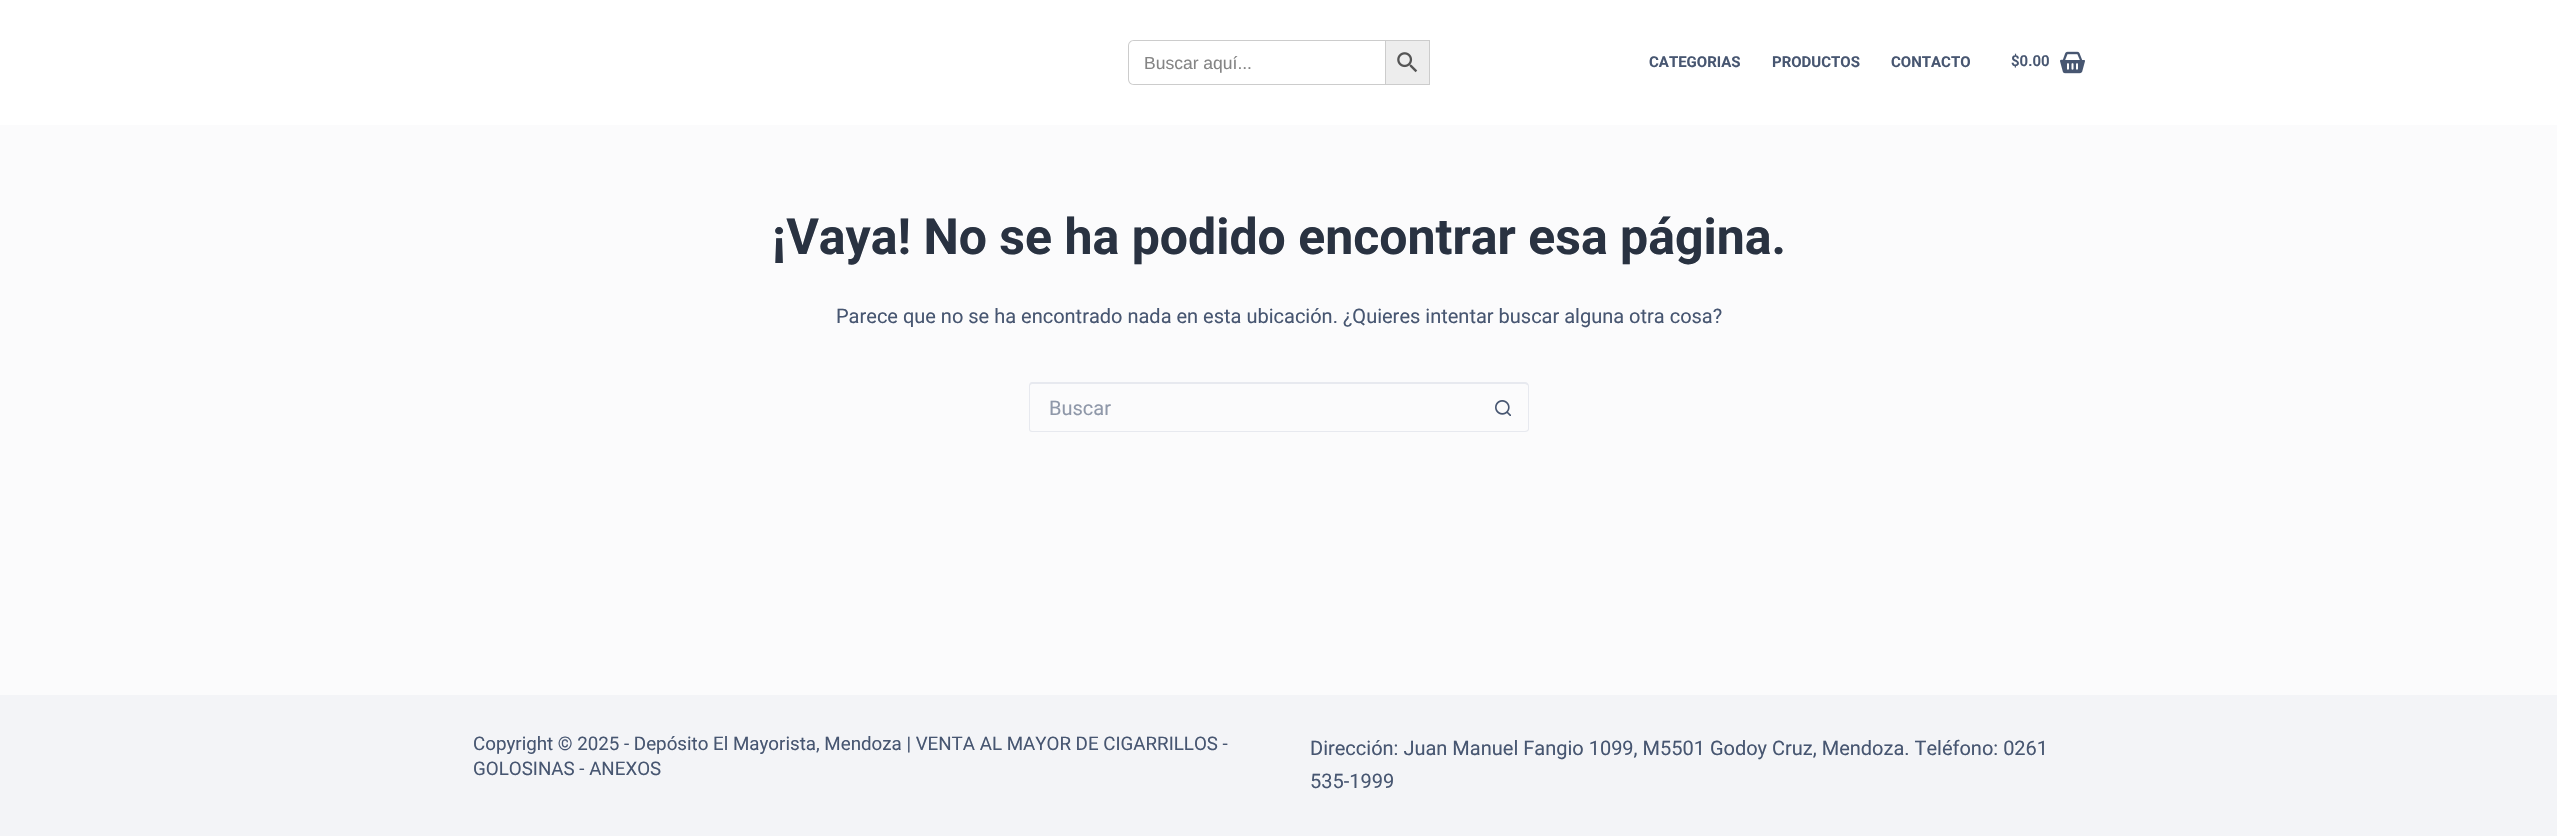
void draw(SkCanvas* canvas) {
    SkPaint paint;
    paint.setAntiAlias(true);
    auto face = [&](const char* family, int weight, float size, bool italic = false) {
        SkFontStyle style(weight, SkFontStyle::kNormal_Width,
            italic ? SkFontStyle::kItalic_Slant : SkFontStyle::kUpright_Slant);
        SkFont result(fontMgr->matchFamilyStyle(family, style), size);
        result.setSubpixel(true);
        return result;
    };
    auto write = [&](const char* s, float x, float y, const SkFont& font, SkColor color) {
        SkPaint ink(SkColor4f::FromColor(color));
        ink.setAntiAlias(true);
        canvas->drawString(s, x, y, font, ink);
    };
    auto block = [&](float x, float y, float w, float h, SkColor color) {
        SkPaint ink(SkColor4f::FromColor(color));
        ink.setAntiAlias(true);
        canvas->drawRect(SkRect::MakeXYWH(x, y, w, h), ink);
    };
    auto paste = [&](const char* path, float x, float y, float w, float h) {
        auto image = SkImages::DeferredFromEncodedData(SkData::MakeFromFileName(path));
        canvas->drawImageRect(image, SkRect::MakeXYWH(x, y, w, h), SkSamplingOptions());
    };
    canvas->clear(SkColorSetRGB(251, 251, 252));
    block(0, 0, 2557, 125, SK_ColorWHITE);
    paint.setColor(SkColorSetRGB(204, 204, 204));
    canvas->drawPath(SkPathBuilder(SkPathFillType::kEvenOdd).moveTo(1134, 40).lineTo(1385, 40).lineTo(1385, 85).lineTo(1134, 85).cubicTo(1130, 85, 1128, 82, 1128, 79).lineTo(1128, 46).cubicTo(1128, 43, 1130, 40, 1134, 40).close().moveTo(1134, 41).lineTo(1385, 41).lineTo(1385, 84).lineTo(1134, 84).cubicTo(1131, 84, 1129, 82, 1129, 79).lineTo(1129, 46).cubicTo(1129, 43, 1131, 41, 1134, 41).close().detach(), paint);
    auto kFont1 = face("Liberation Sans", 400, 17.5f);
    write("Buscar aquí...", 1144, 69, kFont1, SkColorSetRGB(133, 133, 133));
    paint.setColor(SkColorSetRGB(237, 237, 237));
    canvas->drawRect(SkRect::MakeXYWH(1385.5f, 40.5f, 44, 44), paint);
    paint.setStyle(SkPaint::kStroke_Style);
    paint.setStrokeWidth(1);
    paint.setColor(SkColorSetRGB(204, 204, 204));
    canvas->drawRect(SkRect::MakeXYWH(1385.5f, 40.5f, 44, 44), paint);
    paste("pic1.png", 1397, 52, 21, 21);
    auto kFont2 = face("Roboto", 700, 15);
    write("CATEGORIAS", 1649, 67, kFont2, SkColorSetRGB(71, 86, 113));
    write("PRODUCTOS", 1772, 67, kFont2, SkColorSetRGB(71, 86, 113));
    write("CONTACTO", 1891, 67, kFont2, SkColorSetRGB(71, 86, 113));
    auto kFont3 = face("Roboto", 600, 15);
    write("$0.00", 2011, 66, kFont3, SkColorSetRGB(71, 86, 113));
    paste("pic2.png", 2060, 51, 25, 23);
    auto kFont4 = face("Roboto", 700, 50);
    write("¡Vaya! No se ha podido encontrar esa página.", 772, 254, kFont4, SkColorSetRGB(41, 50, 65));
    auto kFont5 = face("Roboto", 400, 20);
    write("Parece que no se ha encontrado nada en esta ubicación. ¿Quieres intentar buscar alguna otra cosa?", 836, 323, kFont5, SkColorSetRGB(71, 86, 113));
    paint.setStyle(SkPaint::kFill_Style);
    paint.setColor(SkColorSetRGB(231, 233, 239));
    canvas->drawPath(SkPathBuilder(SkPathFillType::kEvenOdd).moveTo(1032, 382).lineTo(1479, 382).lineTo(1479, 432).lineTo(1032, 432).cubicTo(1030, 432, 1029, 431, 1029, 429).lineTo(1029, 386).cubicTo(1029, 384, 1030, 382, 1032, 382).close().moveTo(1032, 384).lineTo(1479, 384).lineTo(1479, 431).lineTo(1032, 431).cubicTo(1031, 431, 1030, 430, 1030, 429).lineTo(1030, 386).cubicTo(1030, 385, 1031, 384, 1032, 384).close().detach(), paint);
    write("Buscar", 1049, 415, kFont5, SkColorSetRGB(143, 152, 169));
    canvas->drawPath(SkPathBuilder(SkPathFillType::kEvenOdd).moveTo(1479, 382).lineTo(1525, 382).cubicTo(1527, 382, 1529, 384, 1529, 386).lineTo(1529, 429).cubicTo(1529, 431, 1527, 432, 1525, 432).lineTo(1479, 432).close().moveTo(1479, 384).lineTo(1525, 384).cubicTo(1526, 384, 1528, 385, 1528, 386).lineTo(1528, 429).cubicTo(1528, 430, 1526, 431, 1525, 431).lineTo(1479, 431).close().detach(), paint);
    paste("pic3.png", 1495, 400, 16, 16);
    block(0, 695, 2557, 141, SkColorSetRGB(243, 244, 247));
    auto kFont6 = face("Roboto", 400, 18.75f);
    write("Copyright © 2025 - Depósito El Mayorista, Mendoza | VENTA AL MAYOR DE CIGARRILLOS -", 473, 750, kFont6, SkColorSetRGB(71, 86, 113));
    write("GOLOSINAS - ANEXOS", 473, 775, kFont6, SkColorSetRGB(71, 86, 113));
    write("Dirección: Juan Manuel Fangio 1099, M5501 Godoy Cruz, Mendoza. Teléfono: 0261", 1310, 755, kFont5, SkColorSetRGB(71, 86, 113));
    write("535-1999", 1310, 788, kFont5, SkColorSetRGB(71, 86, 113));
}
